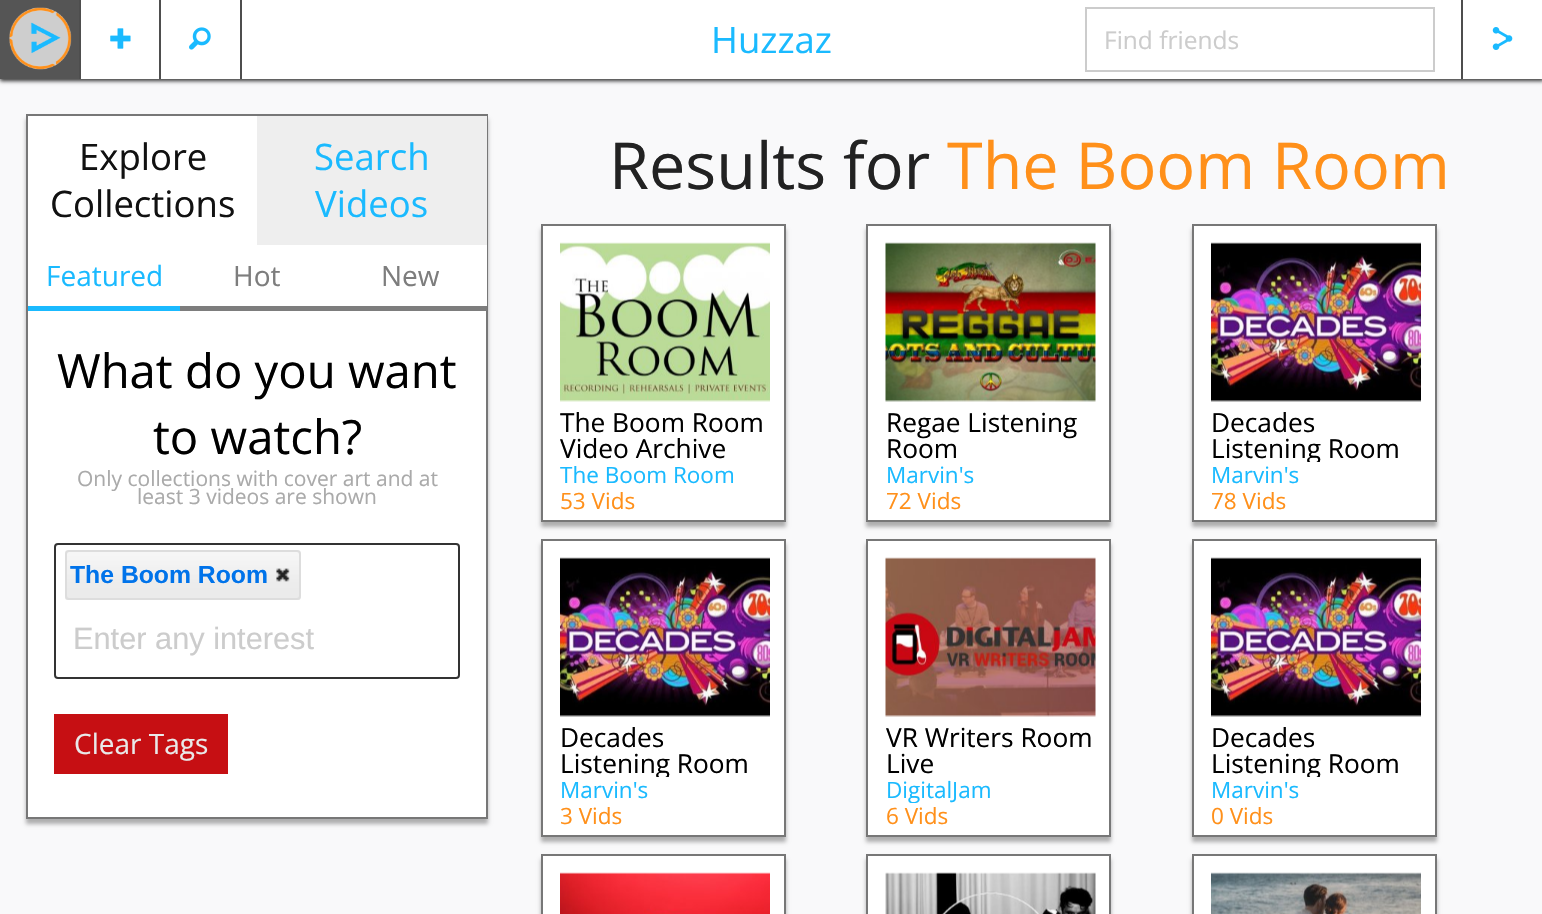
void draw(SkCanvas* canvas) {
    SkPaint paint;
    paint.setAntiAlias(true);
    auto face = [&](const char* family, int weight, float size, bool italic = false) {
        SkFontStyle style(weight, SkFontStyle::kNormal_Width,
            italic ? SkFontStyle::kItalic_Slant : SkFontStyle::kUpright_Slant);
        SkFont result(fontMgr->matchFamilyStyle(family, style), size);
        result.setSubpixel(true);
        return result;
    };
    auto write = [&](const char* s, float x, float y, const SkFont& font, SkColor color) {
        SkPaint ink(SkColor4f::FromColor(color));
        ink.setAntiAlias(true);
        canvas->drawString(s, x, y, font, ink);
    };
    auto block = [&](float x, float y, float w, float h, SkColor color) {
        SkPaint ink(SkColor4f::FromColor(color));
        ink.setAntiAlias(true);
        canvas->drawRect(SkRect::MakeXYWH(x, y, w, h), ink);
    };
    auto paste = [&](const char* path, float x, float y, float w, float h) {
        auto image = SkImages::DeferredFromEncodedData(SkData::MakeFromFileName(path));
        canvas->drawImageRect(image, SkRect::MakeXYWH(x, y, w, h), SkSamplingOptions());
    };
    canvas->clear(SkColorSetRGB(249, 249, 250));
    paint.setColor(SkColorSetRGB(51, 51, 51));
    paint.setMaskFilter(SkMaskFilter::MakeBlur(kNormal_SkBlurStyle, 2));
    canvas->drawRect(SkRect::MakeXYWH(0, 2, 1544, 79), paint);
    paint.setMaskFilter(nullptr);
    block(81, 0, 1461, 79, SK_ColorWHITE);
    block(0, 0, 79, 79, SkColorSetRGB(85, 85, 85));
    paste("pic1.png", 9, 7, 63, 63);
    block(79, 0, 2, 79, SkColorSetRGB(78, 78, 78));
    paste("pic2.png", 110, 28, 21, 21);
    block(159, 0, 2, 79, SkColorSetRGB(78, 78, 78));
    paste("pic3.png", 189, 27, 22, 23);
    block(240, 0, 2, 79, SkColorSetRGB(78, 78, 78));
    auto kFont1 = face("Open Sans", 400, 36.5f);
    write("Huzzaz", 711, 53, kFont1, SkColorSetRGB(26, 186, 255));
    paint.setStyle(SkPaint::kStroke_Style);
    paint.setStrokeWidth(2);
    paint.setColor(SkColorSetRGB(204, 204, 204));
    canvas->drawRect(SkRect::MakeXYWH(1086, 8, 348, 63), paint);
    auto kFont2 = face("Open Sans", 400, 24.5f);
    write("Find friends", 1104, 49, kFont2, SkColorSetRGB(204, 204, 204));
    block(1461, 0, 2, 79, SkColorSetRGB(78, 78, 78));
    paste("pic4.png", 1492, 27, 21, 23);
    paint.setStyle(SkPaint::kFill_Style);
    paint.setColor(SkColorSetARGB(77, 0, 0, 0));
    paint.setMaskFilter(SkMaskFilter::MakeBlur(kNormal_SkBlurStyle, 2));
    canvas->drawRect(SkRect::MakeXYWH(26, 119, 462, 705), paint);
    paint.setMaskFilter(nullptr);
    paint.setColor(SK_ColorWHITE);
    canvas->drawRect(SkRect::MakeXYWH(27, 115, 460, 703), paint);
    paint.setStyle(SkPaint::kStroke_Style);
    paint.setColor(SkColorSetRGB(119, 119, 119));
    canvas->drawRect(SkRect::MakeXYWH(27, 115, 460, 703), paint);
    write("Explore", 79, 170, kFont1, SkColorSetRGB(17, 17, 17));
    write("Collections", 50, 217, kFont1, SkColorSetRGB(17, 17, 17));
    block(257, 116, 230, 129, SkColorSetRGB(238, 238, 238));
    write("Search", 314, 170, kFont1, SkColorSetRGB(26, 186, 255));
    write("Videos", 315, 217, kFont1, SkColorSetRGB(26, 186, 255));
    block(28, 306, 152, 5, SkColorSetRGB(26, 186, 255));
    auto kFont3 = face("Open Sans", 400, 28);
    write("Featured", 46, 286, kFont3, SkColorSetRGB(26, 186, 255));
    block(180, 306, 307, 5, SkColorSetRGB(125, 125, 125));
    write("Hot", 233, 286, kFont3, SkColorSetRGB(125, 125, 125));
    block(486, 245, 1, 61, SK_ColorWHITE);
    write("New", 381, 286, kFont3, SkColorSetRGB(125, 125, 125));
    auto kFont4 = face("Open Sans", 400, 47.25f);
    write("What do you want", 57, 388, kFont4, SK_ColorBLACK);
    write("to watch?", 153, 454, kFont4, SK_ColorBLACK);
    auto kFont5 = face("Open Sans", 400, 21);
    write("Only collections with cover art and at", 77, 486, kFont5, SkColorSetRGB(170, 170, 170));
    write("least 3 videos are shown", 137, 504, kFont5, SkColorSetRGB(170, 170, 170));
    paint.setColor(SkColorSetRGB(51, 51, 51));
    canvas->drawRoundRect(SkRect::MakeXYWH(55, 544, 404, 134), 3, 3, paint);
    paste("pic5.png", 65, 550, 236, 50);
    paint.setColor(SkColorSetRGB(221, 221, 221));
    canvas->drawRoundRect(SkRect::MakeXYWH(66, 551, 234, 48), 3, 3, paint);
    auto kFont6 = face("Liberation Sans", 700, 24.75f);
    write("The Boom Room", 70, 583, kFont6, SkColorSetRGB(0, 115, 234));
    paste("pic6.png", 276, 568, 14, 14);
    auto kFont7 = face("Liberation Sans", 400, 30.75f);
    write("Enter any interest", 73, 649, kFont7, SkColorSetRGB(204, 204, 204));
    block(54, 714, 174, 60, SkColorSetRGB(198, 15, 19));
    write("Clear Tags", 74, 754, kFont3, SkColorSetRGB(233, 233, 233));
    auto kFont8 = face("Open Sans", 400, 64.75f);
    write("Results for", 609, 189, kFont8, SkColorSetRGB(34, 34, 34));
    write("The Boom Room", 947, 189, kFont8, SkColorSetRGB(255, 144, 26));
    paint.setStyle(SkPaint::kFill_Style);
    paint.setColor(SkColorSetARGB(77, 0, 0, 0));
    paint.setMaskFilter(SkMaskFilter::MakeBlur(kNormal_SkBlurStyle, 2));
    canvas->drawRect(SkRect::MakeXYWH(541, 229, 245, 298), paint);
    paint.setMaskFilter(nullptr);
    paint.setColor(SK_ColorWHITE);
    canvas->drawRect(SkRect::MakeXYWH(542, 225, 243, 296), paint);
    paint.setStyle(SkPaint::kStroke_Style);
    paint.setColor(SkColorSetRGB(119, 119, 119));
    canvas->drawRect(SkRect::MakeXYWH(542, 225, 243, 296), paint);
    paste("pic7.png", 560, 242, 210, 160);
    auto kFont9 = face("Open Sans", 400, 26.25f);
    write("The Boom Room", 560, 432, kFont9, SK_ColorBLACK);
    write("Video Archive", 560, 458, kFont9, SK_ColorBLACK);
    auto kFont10 = face("Open Sans", 400, 22.5f);
    write("The Boom Room", 560, 483, kFont10, SkColorSetRGB(26, 186, 255));
    write("53 Vids", 560, 509, kFont10, SkColorSetRGB(255, 144, 26));
    paint.setStyle(SkPaint::kFill_Style);
    paint.setColor(SkColorSetARGB(77, 0, 0, 0));
    paint.setMaskFilter(SkMaskFilter::MakeBlur(kNormal_SkBlurStyle, 2));
    canvas->drawRect(SkRect::MakeXYWH(866, 229, 245, 298), paint);
    paint.setMaskFilter(nullptr);
    paint.setColor(SK_ColorWHITE);
    canvas->drawRect(SkRect::MakeXYWH(867, 225, 243, 296), paint);
    paint.setStyle(SkPaint::kStroke_Style);
    paint.setColor(SkColorSetRGB(119, 119, 119));
    canvas->drawRect(SkRect::MakeXYWH(867, 225, 243, 296), paint);
    paste("pic8.png", 885, 242, 211, 160);
    write("Regae Listening", 886, 432, kFont9, SK_ColorBLACK);
    write("Room", 886, 458, kFont9, SK_ColorBLACK);
    write("Marvin's", 886, 483, kFont10, SkColorSetRGB(26, 186, 255));
    write("72 Vids", 886, 509, kFont10, SkColorSetRGB(255, 144, 26));
    paint.setStyle(SkPaint::kFill_Style);
    paint.setColor(SkColorSetARGB(77, 0, 0, 0));
    paint.setMaskFilter(SkMaskFilter::MakeBlur(kNormal_SkBlurStyle, 2));
    canvas->drawRect(SkRect::MakeXYWH(1192, 229, 245, 298), paint);
    paint.setMaskFilter(nullptr);
    paint.setColor(SK_ColorWHITE);
    canvas->drawRect(SkRect::MakeXYWH(1193, 225, 243, 296), paint);
    paint.setStyle(SkPaint::kStroke_Style);
    paint.setColor(SkColorSetRGB(119, 119, 119));
    canvas->drawRect(SkRect::MakeXYWH(1193, 225, 243, 296), paint);
    paste("pic9.png", 1211, 242, 210, 160);
    write("Decades", 1211, 432, kFont9, SK_ColorBLACK);
    canvas->save();
    canvas->clipRect(SkRect::MakeXYWH(1211, 410, 210, 52));
    write("Listening Room", 1211, 458, kFont9, SK_ColorBLACK);
    canvas->restore();
    write("Marvin's", 1211, 483, kFont10, SkColorSetRGB(26, 186, 255));
    write("78 Vids", 1211, 509, kFont10, SkColorSetRGB(255, 144, 26));
    paint.setStyle(SkPaint::kFill_Style);
    paint.setColor(SkColorSetARGB(77, 0, 0, 0));
    paint.setMaskFilter(SkMaskFilter::MakeBlur(kNormal_SkBlurStyle, 2));
    canvas->drawRect(SkRect::MakeXYWH(541, 544, 245, 298), paint);
    paint.setMaskFilter(nullptr);
    paint.setColor(SK_ColorWHITE);
    canvas->drawRect(SkRect::MakeXYWH(542, 540, 243, 296), paint);
    paint.setStyle(SkPaint::kStroke_Style);
    paint.setColor(SkColorSetRGB(119, 119, 119));
    canvas->drawRect(SkRect::MakeXYWH(542, 540, 243, 296), paint);
    paste("pic9.png", 560, 557, 210, 160);
    write("Decades", 560, 747, kFont9, SK_ColorBLACK);
    canvas->save();
    canvas->clipRect(SkRect::MakeXYWH(560, 725, 210, 52));
    write("Listening Room", 560, 773, kFont9, SK_ColorBLACK);
    canvas->restore();
    write("Marvin's", 560, 798, kFont10, SkColorSetRGB(26, 186, 255));
    write("3 Vids", 560, 824, kFont10, SkColorSetRGB(255, 144, 26));
    paint.setStyle(SkPaint::kFill_Style);
    paint.setColor(SkColorSetARGB(77, 0, 0, 0));
    paint.setMaskFilter(SkMaskFilter::MakeBlur(kNormal_SkBlurStyle, 2));
    canvas->drawRect(SkRect::MakeXYWH(866, 544, 245, 298), paint);
    paint.setMaskFilter(nullptr);
    paint.setColor(SK_ColorWHITE);
    canvas->drawRect(SkRect::MakeXYWH(867, 540, 243, 296), paint);
    paint.setStyle(SkPaint::kStroke_Style);
    paint.setColor(SkColorSetRGB(119, 119, 119));
    canvas->drawRect(SkRect::MakeXYWH(867, 540, 243, 296), paint);
    paste("pic10.png", 885, 557, 211, 160);
    write("VR Writers Room", 886, 747, kFont9, SK_ColorBLACK);
    write("Live", 886, 773, kFont9, SK_ColorBLACK);
    canvas->save();
    canvas->clipRect(SkRect::MakeXYWH(886, 777, 210, 26));
    write("DigitalJam", 886, 798, kFont10, SkColorSetRGB(26, 186, 255));
    canvas->restore();
    write("6 Vids", 886, 824, kFont10, SkColorSetRGB(255, 144, 26));
    paint.setStyle(SkPaint::kFill_Style);
    paint.setColor(SkColorSetARGB(77, 0, 0, 0));
    paint.setMaskFilter(SkMaskFilter::MakeBlur(kNormal_SkBlurStyle, 2));
    canvas->drawRect(SkRect::MakeXYWH(1192, 544, 245, 298), paint);
    paint.setMaskFilter(nullptr);
    paint.setColor(SK_ColorWHITE);
    canvas->drawRect(SkRect::MakeXYWH(1193, 540, 243, 296), paint);
    paint.setStyle(SkPaint::kStroke_Style);
    paint.setColor(SkColorSetRGB(119, 119, 119));
    canvas->drawRect(SkRect::MakeXYWH(1193, 540, 243, 296), paint);
    paste("pic9.png", 1211, 557, 210, 160);
    write("Decades", 1211, 747, kFont9, SK_ColorBLACK);
    canvas->save();
    canvas->clipRect(SkRect::MakeXYWH(1211, 725, 210, 52));
    write("Listening Room", 1211, 773, kFont9, SK_ColorBLACK);
    canvas->restore();
    write("Marvin's", 1211, 798, kFont10, SkColorSetRGB(26, 186, 255));
    write("0 Vids", 1211, 824, kFont10, SkColorSetRGB(255, 144, 26));
    paint.setStyle(SkPaint::kFill_Style);
    paint.setColor(SkColorSetARGB(77, 0, 0, 0));
    paint.setMaskFilter(SkMaskFilter::MakeBlur(kNormal_SkBlurStyle, 2));
    canvas->drawRect(SkRect::MakeXYWH(541, 859, 245, 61), paint);
    paint.setMaskFilter(nullptr);
    paint.setColor(SK_ColorWHITE);
    canvas->drawRect(SkRect::MakeXYWH(542, 855, 243, 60), paint);
    paint.setStyle(SkPaint::kStroke_Style);
    paint.setColor(SkColorSetRGB(119, 119, 119));
    canvas->drawRect(SkRect::MakeXYWH(542, 855, 243, 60), paint);
    paste("pic11.png", 560, 872, 210, 42);
    paint.setStyle(SkPaint::kFill_Style);
    paint.setColor(SkColorSetARGB(77, 0, 0, 0));
    paint.setMaskFilter(SkMaskFilter::MakeBlur(kNormal_SkBlurStyle, 2));
    canvas->drawRect(SkRect::MakeXYWH(866, 859, 245, 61), paint);
    paint.setMaskFilter(nullptr);
    paint.setColor(SK_ColorWHITE);
    canvas->drawRect(SkRect::MakeXYWH(867, 855, 243, 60), paint);
    paint.setStyle(SkPaint::kStroke_Style);
    paint.setColor(SkColorSetRGB(119, 119, 119));
    canvas->drawRect(SkRect::MakeXYWH(867, 855, 243, 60), paint);
    paste("pic12.png", 885, 872, 211, 42);
    paint.setStyle(SkPaint::kFill_Style);
    paint.setColor(SkColorSetARGB(77, 0, 0, 0));
    paint.setMaskFilter(SkMaskFilter::MakeBlur(kNormal_SkBlurStyle, 2));
    canvas->drawRect(SkRect::MakeXYWH(1192, 859, 245, 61), paint);
    paint.setMaskFilter(nullptr);
    paint.setColor(SK_ColorWHITE);
    canvas->drawRect(SkRect::MakeXYWH(1193, 855, 243, 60), paint);
    paint.setStyle(SkPaint::kStroke_Style);
    paint.setColor(SkColorSetRGB(119, 119, 119));
    canvas->drawRect(SkRect::MakeXYWH(1193, 855, 243, 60), paint);
    paste("pic13.png", 1211, 872, 210, 42);
}
